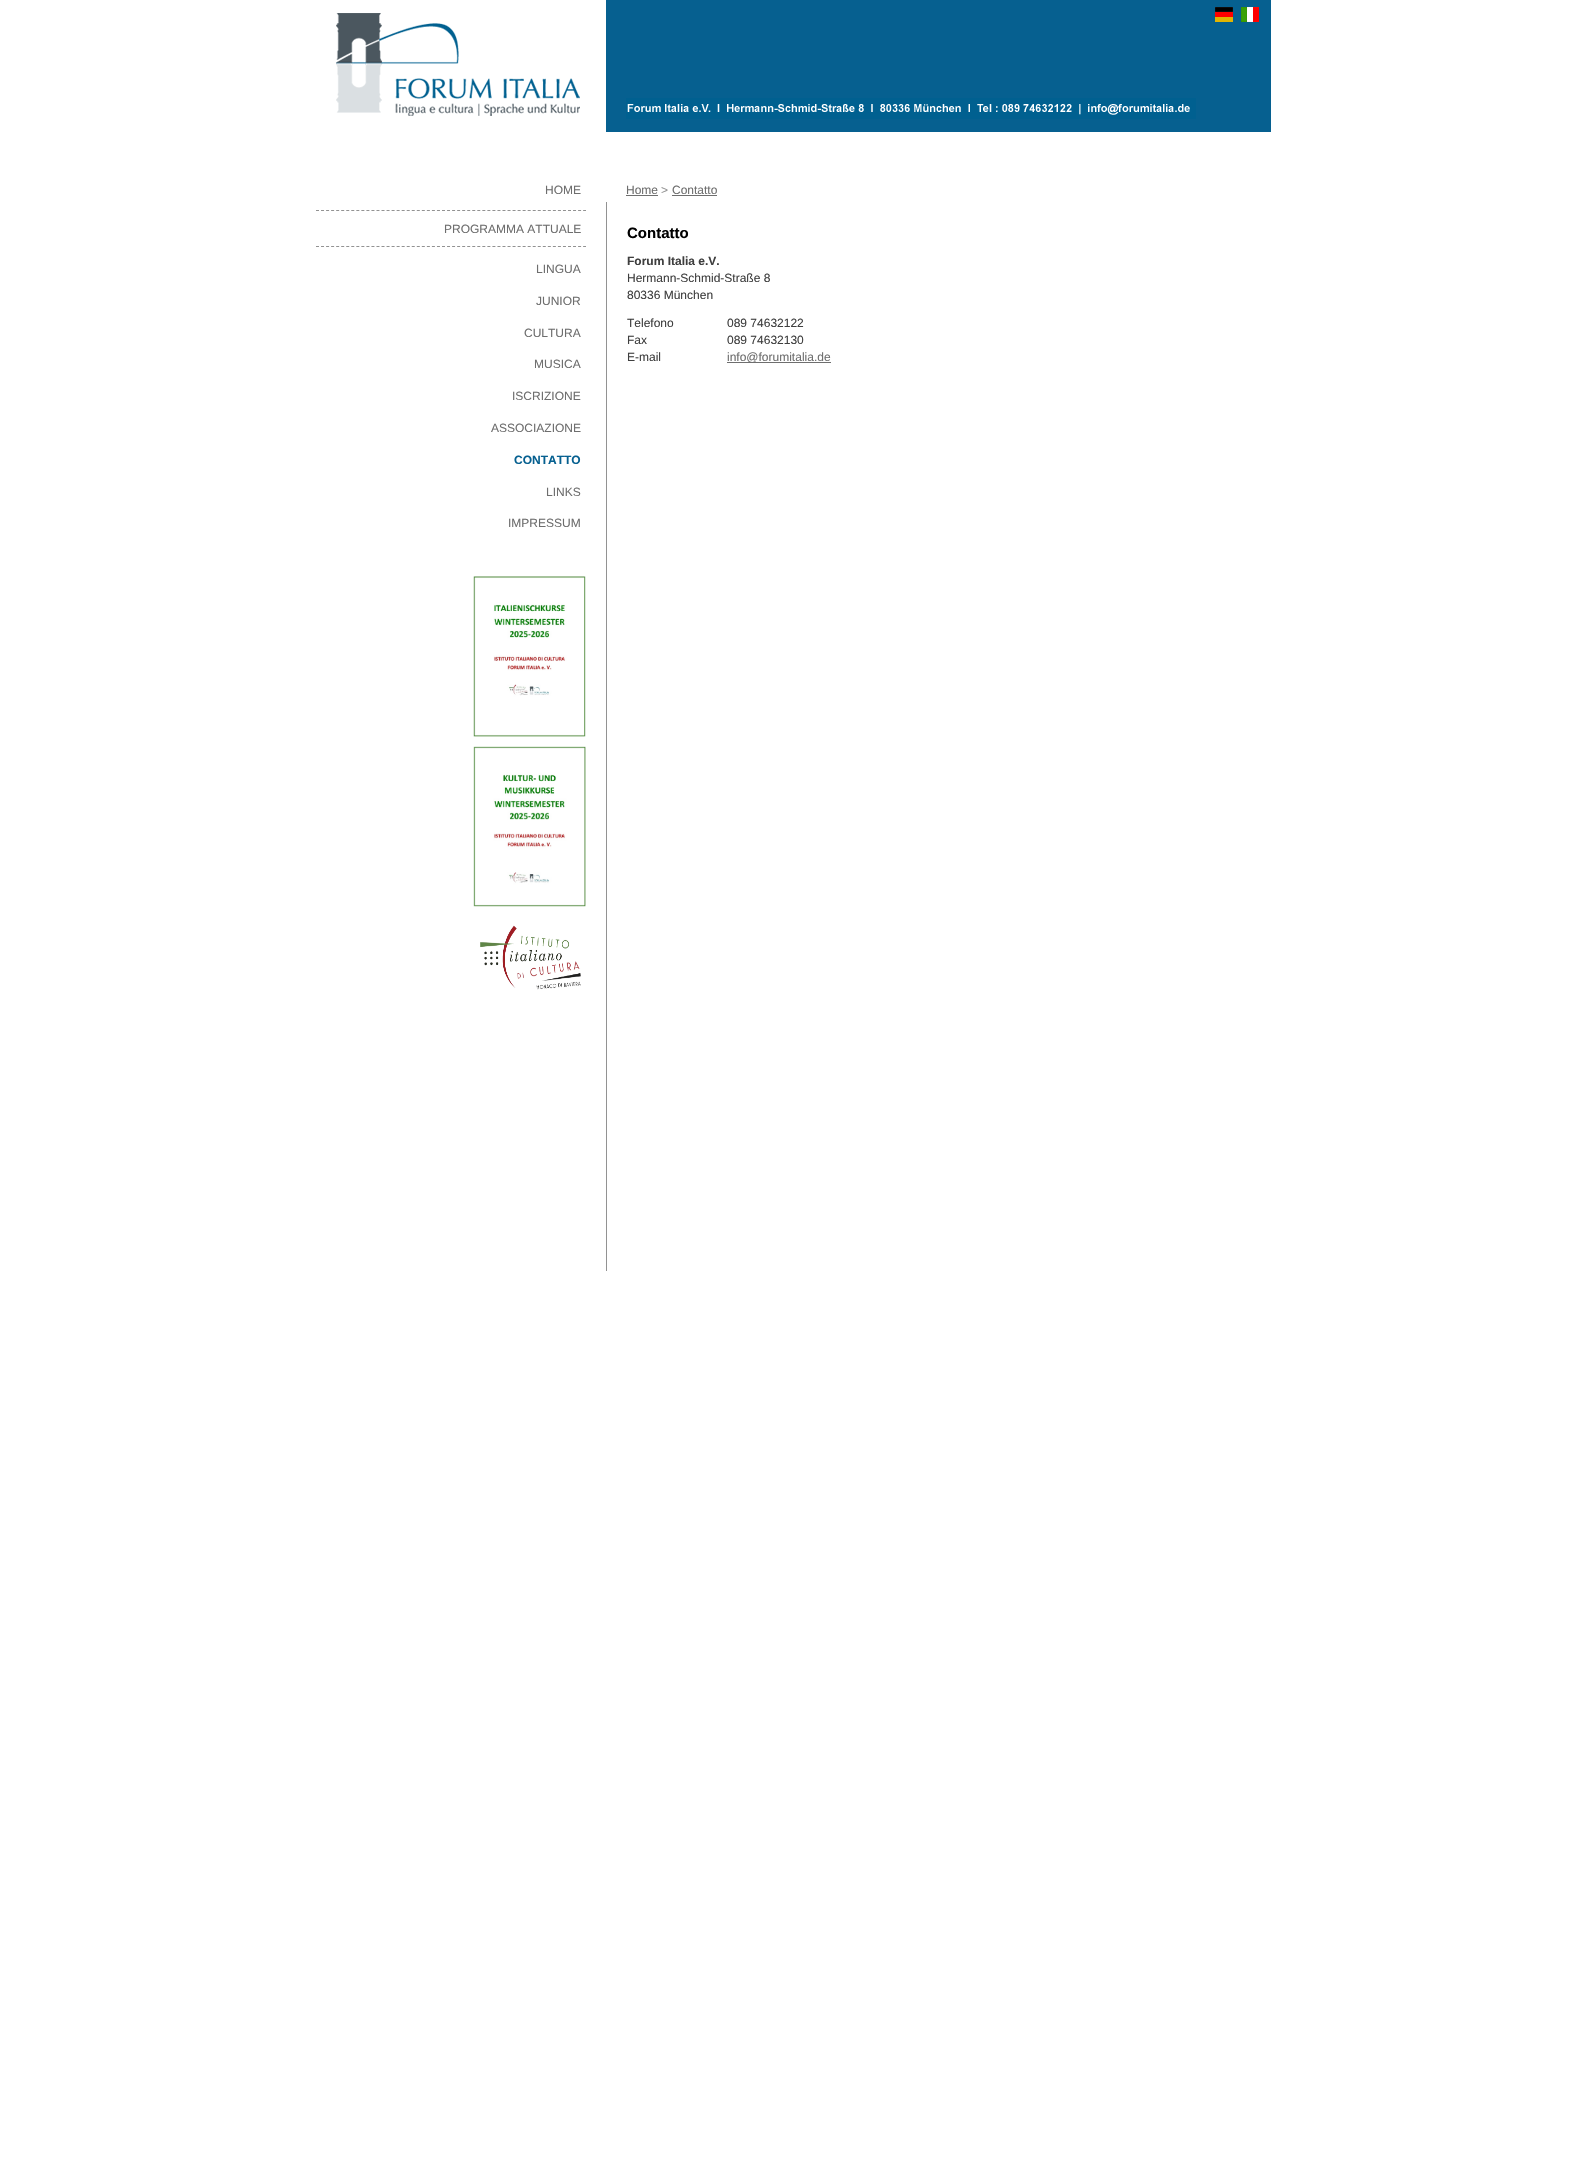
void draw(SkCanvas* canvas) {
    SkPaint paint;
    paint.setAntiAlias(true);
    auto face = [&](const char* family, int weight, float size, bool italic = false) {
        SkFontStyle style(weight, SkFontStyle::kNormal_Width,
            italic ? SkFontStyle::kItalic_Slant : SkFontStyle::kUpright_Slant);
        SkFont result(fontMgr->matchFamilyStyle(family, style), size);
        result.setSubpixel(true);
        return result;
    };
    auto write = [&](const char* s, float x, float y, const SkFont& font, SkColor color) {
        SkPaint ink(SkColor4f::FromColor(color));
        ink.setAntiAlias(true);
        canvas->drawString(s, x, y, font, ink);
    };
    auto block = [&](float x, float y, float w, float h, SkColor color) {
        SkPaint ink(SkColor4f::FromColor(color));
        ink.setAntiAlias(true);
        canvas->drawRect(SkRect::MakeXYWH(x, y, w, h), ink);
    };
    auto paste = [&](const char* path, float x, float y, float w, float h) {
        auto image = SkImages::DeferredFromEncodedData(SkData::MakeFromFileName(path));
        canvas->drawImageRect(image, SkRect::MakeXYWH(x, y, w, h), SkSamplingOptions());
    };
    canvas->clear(SK_ColorWHITE);
    paste("pic1.png", 336, 13, 244, 103);
    block(606, 0, 665, 132, SkColorSetRGB(6, 96, 144));
    paste("pic2.png", 1215, 7, 18, 15);
    paste("pic3.png", 1241, 7, 18, 15);
    paste("pic4.png", 626, 98, 570, 21);
    auto kFont1 = face("Liberation Sans", 400, 12);
    write("HOME", 545, 194, kFont1, SkColorSetRGB(110, 110, 110));
    write("Home", 626, 194, kFont1, SkColorSetRGB(110, 110, 110));
    block(626, 195, 32, 1, SkColorSetRGB(110, 110, 110));
    write(">", 661, 194, kFont1, SkColorSetRGB(146, 146, 146));
    write("Contatto", 672, 194, kFont1, SkColorSetRGB(110, 110, 110));
    block(672, 195, 45, 1, SkColorSetRGB(110, 110, 110));
    paint.setStyle(SkPaint::kStroke_Style);
    paint.setStrokeWidth(1);
    paint.setColor(SkColorSetRGB(146, 146, 146));
    paint.setPathEffect(SkDashPathEffect::Make({{3, 2.04f}}, 0));
    canvas->drawPath(SkPathBuilder().moveTo(316, 210.5f).lineTo(586, 210.5f).detach(), paint);
    paint.setPathEffect(nullptr);
    paint.setPathEffect(SkDashPathEffect::Make({{3, 2.04f}}, 0));
    canvas->drawPath(SkPathBuilder().moveTo(316, 246.5f).lineTo(586, 246.5f).detach(), paint);
    paint.setPathEffect(nullptr);
    write("PROGRAMMA ATTUALE", 444, 233, kFont1, SkColorSetRGB(110, 110, 110));
    write("LINGUA", 536, 273, kFont1, SkColorSetRGB(110, 110, 110));
    write("JUNIOR", 536, 305, kFont1, SkColorSetRGB(110, 110, 110));
    write("CULTURA", 524, 337, kFont1, SkColorSetRGB(110, 110, 110));
    write("MUSICA", 534, 368, kFont1, SkColorSetRGB(110, 110, 110));
    write("ISCRIZIONE", 512, 400, kFont1, SkColorSetRGB(110, 110, 110));
    write("ASSOCIAZIONE", 491, 432, kFont1, SkColorSetRGB(110, 110, 110));
    auto kFont2 = face("Liberation Sans", 700, 12);
    write("CONTATTO", 514, 464, kFont2, SkColorSetRGB(6, 96, 144));
    write("LINKS", 546, 496, kFont1, SkColorSetRGB(110, 110, 110));
    write("IMPRESSUM", 508, 527, kFont1, SkColorSetRGB(110, 110, 110));
    paste("pic5.png", 473, 576, 113, 161);
    paste("pic6.png", 473, 746, 113, 161);
    paste("pic7.png", 480, 925, 101, 65);
    block(606, 202, 1, 1069, SkColorSetRGB(146, 146, 146));
    auto kFont3 = face("Liberation Sans", 700, 15);
    write("Contatto", 627, 238, kFont3, SK_ColorBLACK);
    write("Forum Italia e.V.", 627, 265, kFont2, SkColorSetRGB(63, 63, 63));
    write("Hermann-Schmid-Straße 8", 627, 282, kFont1, SkColorSetRGB(63, 63, 63));
    write("80336 München", 627, 299, kFont1, SkColorSetRGB(63, 63, 63));
    write("Telefono", 627, 327, kFont1, SkColorSetRGB(63, 63, 63));
    write("Fax", 627, 344, kFont1, SkColorSetRGB(63, 63, 63));
    write("E-mail", 627, 361, kFont1, SkColorSetRGB(63, 63, 63));
    write("089 74632122", 727, 327, kFont1, SkColorSetRGB(63, 63, 63));
    write("089 74632130", 727, 344, kFont1, SkColorSetRGB(63, 63, 63));
    block(727, 362, 104, 1, SkColorSetRGB(110, 110, 110));
    write("info@forumitalia.de", 727, 361, kFont1, SkColorSetRGB(110, 110, 110));
}
